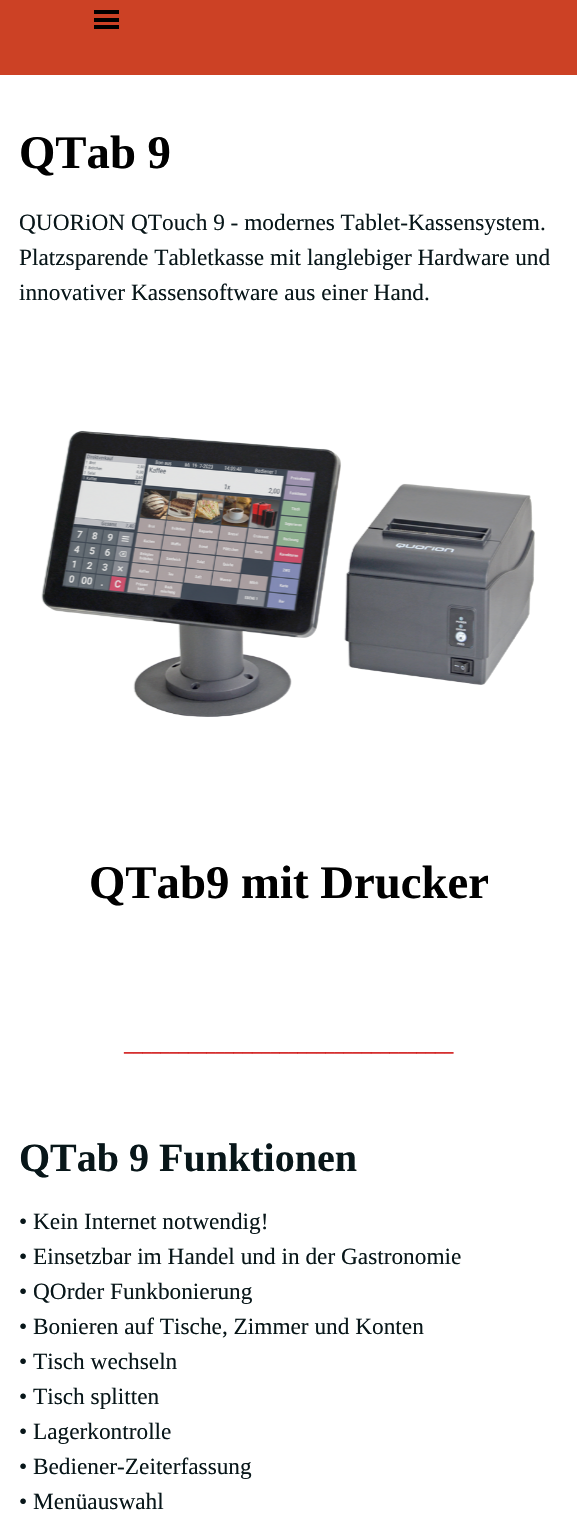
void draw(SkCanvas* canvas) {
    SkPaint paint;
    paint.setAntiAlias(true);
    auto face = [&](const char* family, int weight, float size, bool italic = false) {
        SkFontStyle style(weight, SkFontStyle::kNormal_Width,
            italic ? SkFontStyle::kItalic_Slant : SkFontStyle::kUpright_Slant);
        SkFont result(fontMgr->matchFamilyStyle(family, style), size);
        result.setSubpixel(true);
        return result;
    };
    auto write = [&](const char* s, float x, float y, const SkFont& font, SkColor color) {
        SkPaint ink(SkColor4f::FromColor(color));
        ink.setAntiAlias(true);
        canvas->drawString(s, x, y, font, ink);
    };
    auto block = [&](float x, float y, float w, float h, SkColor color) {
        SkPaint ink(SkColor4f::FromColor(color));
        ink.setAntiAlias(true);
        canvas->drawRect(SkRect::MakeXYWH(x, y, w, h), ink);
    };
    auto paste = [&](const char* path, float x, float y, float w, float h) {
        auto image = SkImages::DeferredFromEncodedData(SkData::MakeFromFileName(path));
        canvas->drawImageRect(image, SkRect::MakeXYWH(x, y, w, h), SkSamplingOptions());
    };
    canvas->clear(SK_ColorWHITE);
    block(0, 0, 577, 75, SkColorSetRGB(204, 65, 37));
    block(94, 10, 25, 4, SK_ColorBLACK);
    block(94, 18, 25, 4, SK_ColorBLACK);
    block(94, 25, 25, 4, SK_ColorBLACK);
    auto kFont1 = face("Liberation Serif", 700, 46.75f);
    write("QTab 9", 19, 168, kFont1, SK_ColorBLACK);
    auto kFont2 = face("Liberation Serif", 400, 23.3f);
    write("QUORiON QTouch 9 - modernes Tablet-Kassensystem.", 19, 230, kFont2, SkColorSetRGB(8, 22, 25));
    write("Platzsparende Tabletkasse mit langlebiger Hardware und", 19, 265, kFont2, SkColorSetRGB(8, 22, 25));
    write("innovativer Kassensoftware aus einer Hand.", 19, 300, kFont2, SkColorSetRGB(8, 22, 25));
    paste("pic1.png", 41, 430, 494, 287);
    write("QTab9 mit Drucker", 89, 898, kFont1, SK_ColorBLACK);
    auto kFont3 = face("Liberation Serif", 700, 18.3f);
    write("____________________________________", 124, 1051, kFont3, SkColorSetRGB(204, 0, 0));
    auto kFont4 = face("Liberation Serif", 700, 40);
    write("QTab 9 Funktionen", 19, 1171, kFont4, SkColorSetRGB(8, 22, 25));
    write("• Kein Internet notwendig!", 19, 1229, kFont2, SkColorSetRGB(8, 22, 25));
    write("• Einsetzbar im Handel und in der Gastronomie", 19, 1264, kFont2, SkColorSetRGB(8, 22, 25));
    write("• QOrder Funkbonierung", 19, 1299, kFont2, SkColorSetRGB(8, 22, 25));
    write("• Bonieren auf Tische, Zimmer und Konten", 19, 1334, kFont2, SkColorSetRGB(8, 22, 25));
    write("• Tisch wechseln", 19, 1369, kFont2, SkColorSetRGB(8, 22, 25));
    write("• Tisch splitten", 19, 1404, kFont2, SkColorSetRGB(8, 22, 25));
    write("• Lagerkontrolle", 19, 1439, kFont2, SkColorSetRGB(8, 22, 25));
    write("• Bediener-Zeiterfassung", 19, 1474, kFont2, SkColorSetRGB(8, 22, 25));
    write("• Menüauswahl", 19, 1509, kFont2, SkColorSetRGB(8, 22, 25));
}
